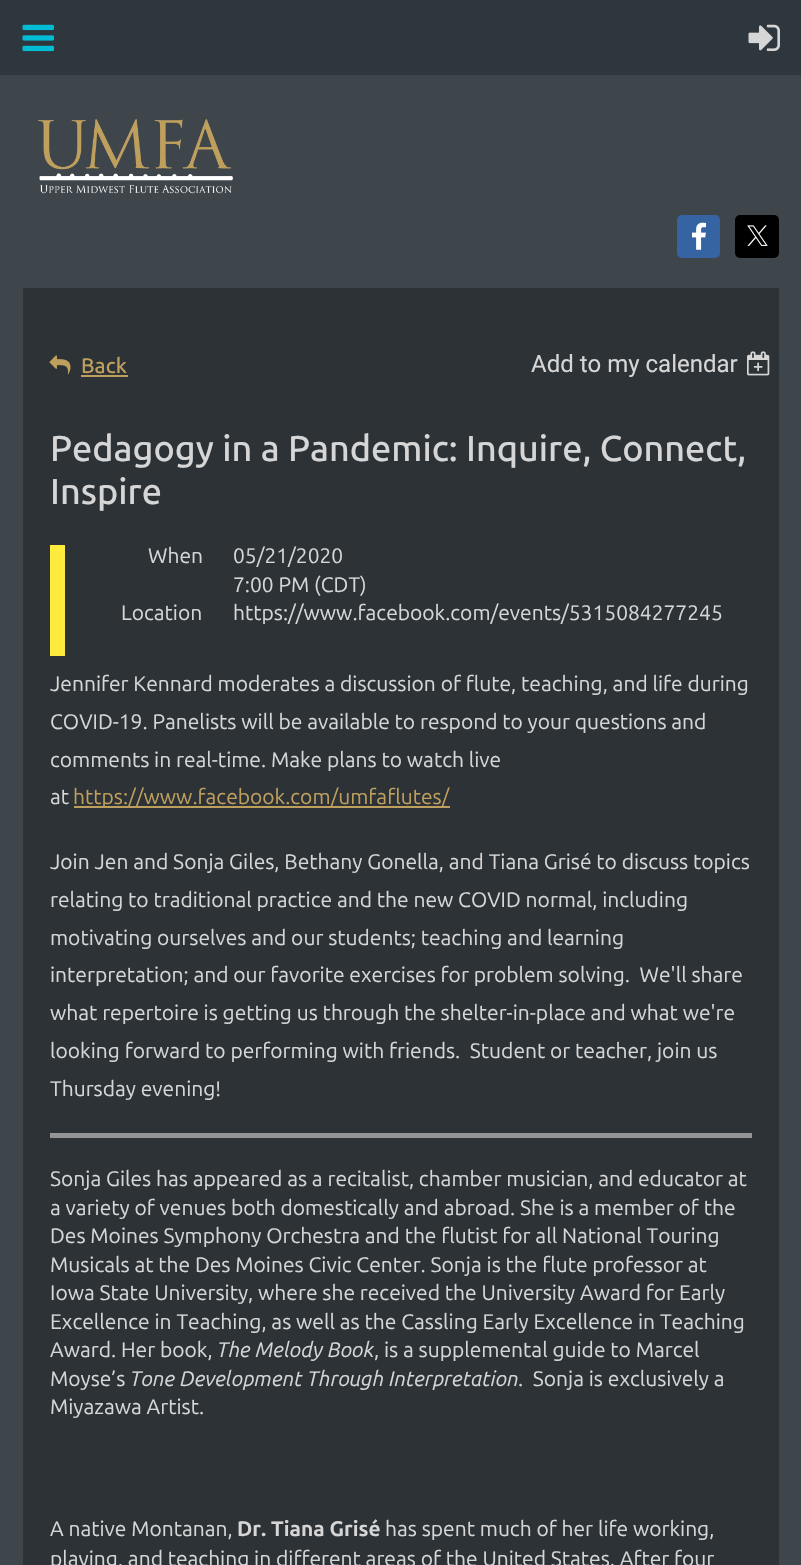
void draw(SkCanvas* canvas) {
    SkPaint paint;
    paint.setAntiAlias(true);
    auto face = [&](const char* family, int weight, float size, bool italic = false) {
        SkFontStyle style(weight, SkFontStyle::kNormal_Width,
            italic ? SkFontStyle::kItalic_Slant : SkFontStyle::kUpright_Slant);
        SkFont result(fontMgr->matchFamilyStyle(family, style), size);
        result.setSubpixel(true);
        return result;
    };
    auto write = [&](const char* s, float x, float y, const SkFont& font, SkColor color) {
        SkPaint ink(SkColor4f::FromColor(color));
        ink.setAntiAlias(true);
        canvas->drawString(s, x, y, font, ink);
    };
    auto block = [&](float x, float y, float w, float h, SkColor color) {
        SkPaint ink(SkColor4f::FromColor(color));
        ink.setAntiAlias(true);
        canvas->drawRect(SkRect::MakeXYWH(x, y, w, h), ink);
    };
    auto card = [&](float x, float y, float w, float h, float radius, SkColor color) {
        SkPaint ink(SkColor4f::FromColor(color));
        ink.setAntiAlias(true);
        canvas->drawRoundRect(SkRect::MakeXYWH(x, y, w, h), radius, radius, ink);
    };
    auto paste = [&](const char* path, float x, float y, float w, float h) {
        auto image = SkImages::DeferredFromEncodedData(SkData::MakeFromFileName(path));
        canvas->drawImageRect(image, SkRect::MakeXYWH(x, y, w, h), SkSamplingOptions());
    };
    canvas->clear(SkColorSetRGB(62, 70, 76));
    block(0, 0, 801, 75, SkColorSetRGB(46, 55, 61));
    paste("pic1.png", 22, 24, 32, 28);
    paste("pic2.png", 748, 24, 32, 27);
    paste("pic3.png", 38, 119, 196, 75);
    card(677, 215, 43, 43, 5, SkColorSetRGB(54, 100, 162));
    paste("pic4.png", 692, 222, 14, 28);
    card(735, 215, 44, 43, 5, SK_ColorBLACK);
    paste("pic5.png", 747, 225, 21, 21);
    block(23, 288, 756, 1277, SkColorSetRGB(44, 50, 54));
    paste("pic6.png", 49, 355, 22, 20);
    auto kFont1 = face("Ubuntu", 500, 21);
    write("Back", 81, 373, kFont1, SkColorSetRGB(190, 159, 94));
    block(81, 375, 47, 2, SkColorSetRGB(190, 159, 94));
    auto kFont2 = face("Roboto", 400, 24);
    write("Add to my calendar", 531, 372, kFont2, SkColorSetRGB(214, 214, 214));
    paste("pic7.png", 747, 351, 23, 25);
    auto kFont3 = face("Ubuntu", 500, 36);
    write("Pedagogy in a Pandemic: Inquire, Connect,", 50, 461, kFont3, SkColorSetRGB(214, 214, 214));
    write("Inspire", 50, 504, kFont3, SkColorSetRGB(214, 214, 214));
    block(50, 545, 15, 111, SkColorSetRGB(255, 235, 59));
    auto kFont4 = face("Ubuntu", 400, 21);
    write("When", 148, 563, kFont4, SkColorSetRGB(214, 214, 214));
    write("05/21/2020", 233, 563, kFont4, SkColorSetRGB(214, 214, 214));
    write("7:00 PM (CDT)", 233, 592, kFont4, SkColorSetRGB(214, 214, 214));
    write("Location", 121, 620, kFont4, SkColorSetRGB(214, 214, 214));
    write("https://www.facebook.com/events/5315084277245", 233, 620, kFont4, SkColorSetRGB(214, 214, 214));
    write("Jennifer Kennard moderates a discussion of flute, teaching, and life during", 50, 691, kFont4, SkColorSetRGB(214, 214, 214));
    write("COVID-19. Panelists will be available to respond to your questions and", 50, 729, kFont4, SkColorSetRGB(214, 214, 214));
    write("comments in real-time. Make plans to watch live", 50, 767, kFont4, SkColorSetRGB(214, 214, 214));
    write("at", 50, 804, kFont4, SkColorSetRGB(214, 214, 214));
    block(74, 806, 376, 2, SkColorSetRGB(190, 159, 94));
    write("https://www.facebook.com/umfaflutes/", 73, 804, kFont4, SkColorSetRGB(190, 159, 94));
    write("Join Jen and Sonja Giles, Bethany Gonella, and Tiana Grisé to discuss topics", 50, 869, kFont4, SkColorSetRGB(214, 214, 214));
    write("relating to traditional practice and the new COVID normal, including", 50, 907, kFont4, SkColorSetRGB(214, 214, 214));
    write("motivating ourselves and our students; teaching and learning", 50, 945, kFont4, SkColorSetRGB(214, 214, 214));
    write("interpretation; and our favorite exercises for problem solving.  We'll share", 50, 982, kFont4, SkColorSetRGB(214, 214, 214));
    write("what repertoire is getting us through the shelter-in-place and what we're", 50, 1020, kFont4, SkColorSetRGB(214, 214, 214));
    write("looking forward to performing with friends.  Student or teacher, join us", 50, 1058, kFont4, SkColorSetRGB(214, 214, 214));
    write("Thursday evening!", 50, 1096, kFont4, SkColorSetRGB(214, 214, 214));
    block(50, 1133, 702, 5, SkColorSetRGB(149, 149, 149));
    write("Sonja Giles has appeared as a recitalist, chamber musician, and educator at", 50, 1186, kFont4, SkColorSetRGB(214, 214, 214));
    write("a variety of venues both domestically and abroad. She is a member of the", 50, 1215, kFont4, SkColorSetRGB(214, 214, 214));
    write("Des Moines Symphony Orchestra and the flutist for all National Touring", 50, 1243, kFont4, SkColorSetRGB(214, 214, 214));
    write("Musicals at the Des Moines Civic Center. Sonja is the flute professor at", 50, 1272, kFont4, SkColorSetRGB(214, 214, 214));
    write("Iowa State University, where she received the University Award for Early", 50, 1300, kFont4, SkColorSetRGB(214, 214, 214));
    write("Excellence in Teaching, as well as the Cassling Early Excellence in Teaching", 50, 1329, kFont4, SkColorSetRGB(214, 214, 214));
    write("Award. Her book,", 50, 1357, kFont4, SkColorSetRGB(214, 214, 214));
    auto kFont5 = face("Ubuntu", 400, 21, true);
    write("The Melody Book", 217, 1357, kFont5, SkColorSetRGB(214, 214, 214));
    write(", is a supplemental guide to Marcel", 374, 1357, kFont4, SkColorSetRGB(214, 214, 214));
    write("Moyse’s", 50, 1386, kFont4, SkColorSetRGB(214, 214, 214));
    write("Tone Development Through Interpretation", 130, 1386, kFont5, SkColorSetRGB(214, 214, 214));
    write(".  Sonja is exclusively a", 518, 1386, kFont4, SkColorSetRGB(214, 214, 214));
    write("Miyazawa Artist.", 50, 1414, kFont4, SkColorSetRGB(214, 214, 214));
    write("A native Montanan,", 50, 1536, kFont4, SkColorSetRGB(214, 214, 214));
    auto kFont6 = face("Ubuntu", 700, 21);
    write("Dr. Tiana Grisé", 237, 1536, kFont6, SkColorSetRGB(214, 214, 214));
    write("has spent much of her life working,", 385, 1536, kFont4, SkColorSetRGB(214, 214, 214));
    write("playing, and teaching in different areas of the United States. After four", 50, 1566, kFont4, SkColorSetRGB(214, 214, 214));
}
